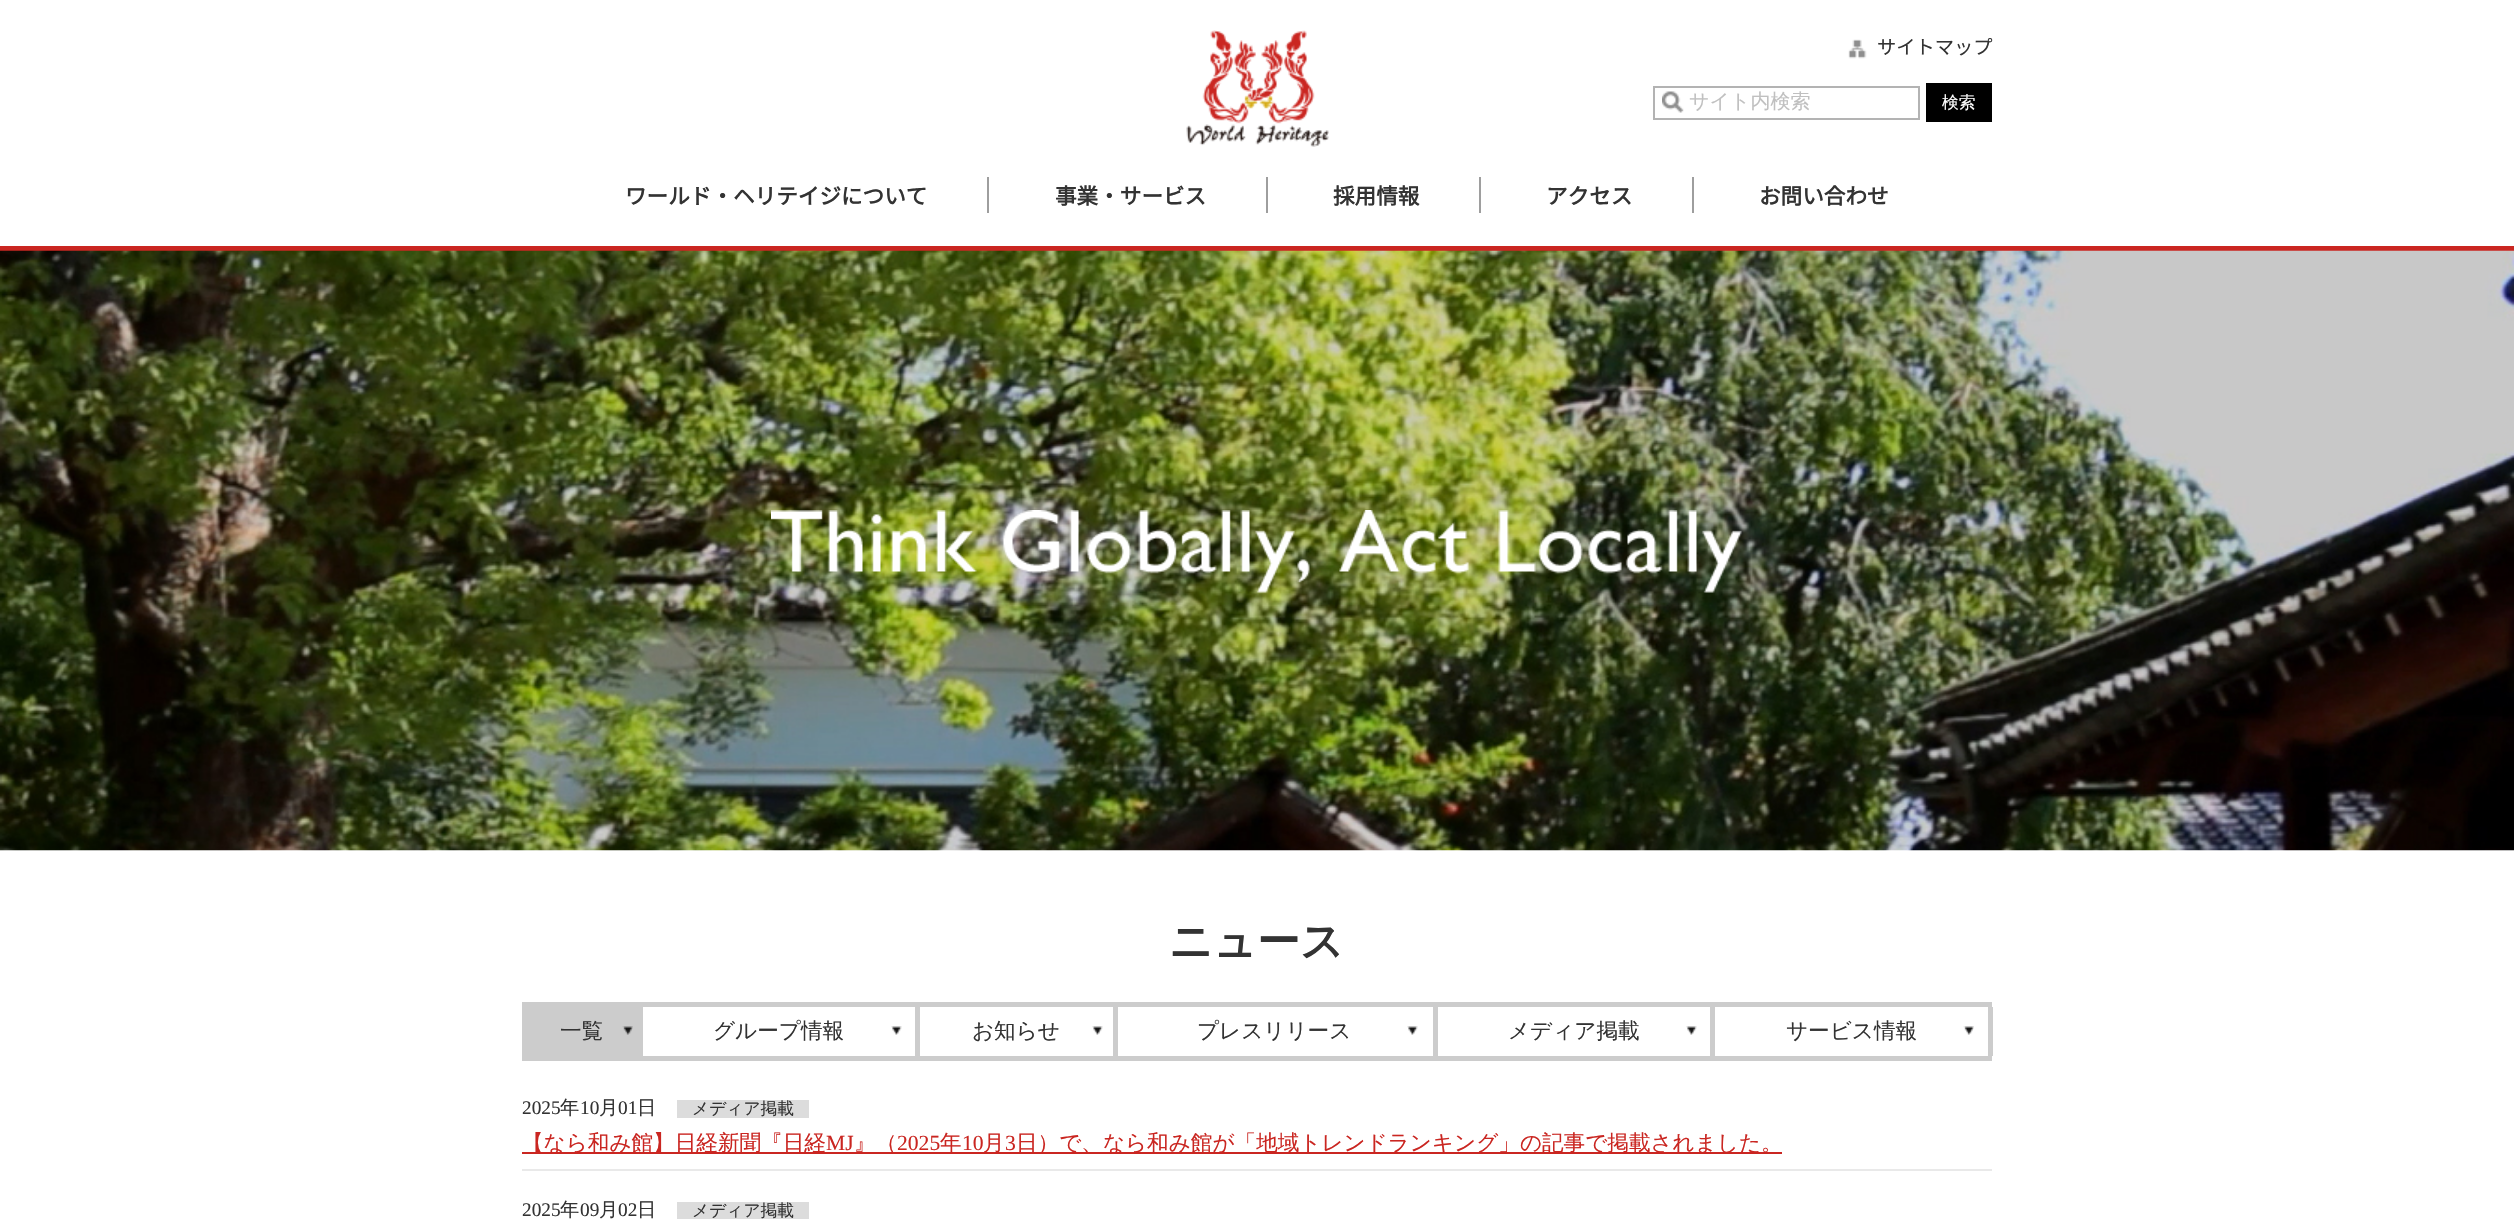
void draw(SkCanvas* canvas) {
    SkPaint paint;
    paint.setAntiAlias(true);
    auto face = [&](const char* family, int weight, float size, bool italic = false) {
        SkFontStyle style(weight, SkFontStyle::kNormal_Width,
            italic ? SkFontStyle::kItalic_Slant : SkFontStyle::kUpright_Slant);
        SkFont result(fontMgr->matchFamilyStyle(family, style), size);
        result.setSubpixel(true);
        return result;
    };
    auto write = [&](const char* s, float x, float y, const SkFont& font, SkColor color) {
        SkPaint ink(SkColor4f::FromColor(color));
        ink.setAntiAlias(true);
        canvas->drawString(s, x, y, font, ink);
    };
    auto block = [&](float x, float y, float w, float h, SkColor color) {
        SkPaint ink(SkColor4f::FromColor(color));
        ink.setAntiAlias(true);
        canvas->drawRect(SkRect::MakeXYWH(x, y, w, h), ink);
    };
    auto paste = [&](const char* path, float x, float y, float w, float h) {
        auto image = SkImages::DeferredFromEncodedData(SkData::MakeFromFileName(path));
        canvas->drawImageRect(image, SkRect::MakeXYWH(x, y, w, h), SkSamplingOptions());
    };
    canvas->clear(SK_ColorWHITE);
    block(0, 246, 2514, 5, SkColorSetRGB(202, 38, 33));
    paste("pic1.png", 1186, 30, 143, 117);
    paste("pic2.png", 1848, 39, 19, 20);
    auto kFont1 = face("Noto Sans JP", 100, 19.25f);
    write("サイトマップ", 1877, 54, kFont1, SkColorSetRGB(51, 51, 51));
    paste("pic3.png", 1662, 91, 22, 22);
    paint.setStyle(SkPaint::kStroke_Style);
    paint.setStrokeWidth(2);
    paint.setColor(SkColorSetRGB(179, 179, 179));
    canvas->drawRect(SkRect::MakeXYWH(1654, 87, 265, 32), paint);
    auto kFont2 = face("WenQuanYi Zen Hei", 500, 20);
    write("サイト内検索", 1689, 108, kFont2, SkColorSetRGB(192, 192, 192));
    block(1926, 83, 66, 39, SK_ColorBLACK);
    auto kFont3 = face("WenQuanYi Zen Hei", 500, 16.75f);
    write("検索", 1942, 108, kFont3, SK_ColorWHITE);
    block(987, 177, 2, 36, SkColorSetRGB(158, 158, 158));
    auto kFont4 = face("Noto Sans JP", 700, 21.6f);
    write("ワールド・ヘリテイジについて", 625, 204, kFont4, SkColorSetRGB(51, 51, 51));
    block(1266, 177, 2, 36, SkColorSetRGB(158, 158, 158));
    write("事業・サービス", 1055, 204, kFont4, SkColorSetRGB(51, 51, 51));
    block(1479, 177, 2, 36, SkColorSetRGB(158, 158, 158));
    write("採用情報", 1333, 204, kFont4, SkColorSetRGB(51, 51, 51));
    block(1692, 177, 2, 36, SkColorSetRGB(158, 158, 158));
    write("アクセス", 1546, 204, kFont4, SkColorSetRGB(51, 51, 51));
    write("お問い合わせ", 1759, 204, kFont4, SkColorSetRGB(51, 51, 51));
    paste("pic4.png", 0, 250, 2514, 601);
    paste("pic5.png", 771, 510, 971, 83);
    auto kFont5 = face("WenQuanYi Zen Hei", 700, 43);
    write("ニュース", 1169, 956, kFont5, SkColorSetRGB(51, 51, 51));
    block(522, 1002, 1470, 5, SkColorSetRGB(204, 204, 204));
    block(522, 1056, 1470, 5, SkColorSetRGB(204, 204, 204));
    block(522, 1002, 5, 59, SkColorSetRGB(204, 204, 204));
    block(527, 1007, 116, 49, SkColorSetRGB(204, 204, 204));
    paste("pic6.png", 622, 1026, 11, 9);
    auto kFont6 = face("WenQuanYi Zen Hei", 500, 21.6f);
    write("一覧", 560, 1038, kFont6, SkColorSetRGB(51, 51, 51));
    block(915, 1007, 5, 49, SkColorSetRGB(204, 204, 204));
    paste("pic7.png", 891, 1026, 11, 9);
    write("グループ情報", 713, 1038, kFont6, SkColorSetRGB(51, 51, 51));
    block(1113, 1007, 5, 49, SkColorSetRGB(204, 204, 204));
    paste("pic8.png", 1092, 1026, 11, 9);
    write("お知らせ", 972, 1038, kFont6, SkColorSetRGB(51, 51, 51));
    block(1433, 1007, 5, 49, SkColorSetRGB(204, 204, 204));
    paste("pic7.png", 1407, 1026, 11, 9);
    write("プレスリリース", 1197, 1038, kFont6, SkColorSetRGB(51, 51, 51));
    block(1710, 1007, 5, 49, SkColorSetRGB(204, 204, 204));
    paste("pic7.png", 1686, 1026, 11, 9);
    write("メディア掲載", 1508, 1038, kFont6, SkColorSetRGB(51, 51, 51));
    block(1988, 1007, 5, 49, SkColorSetRGB(204, 204, 204));
    paste("pic9.png", 1963, 1026, 11, 9);
    write("サービス情報", 1786, 1038, kFont6, SkColorSetRGB(51, 51, 51));
    block(522, 1169, 1470, 2, SkColorSetRGB(233, 233, 233));
    auto kFont7 = face("Liberation Serif", 400, 19.25f);
    write("2025", 522, 1114, kFont7, SkColorSetRGB(51, 51, 51));
    auto kFont8 = face("WenQuanYi Zen Hei", 500, 19.25f);
    write("年", 560, 1114, kFont8, SkColorSetRGB(51, 51, 51));
    write("10", 580, 1114, kFont7, SkColorSetRGB(51, 51, 51));
    write("月", 599, 1114, kFont8, SkColorSetRGB(51, 51, 51));
    write("01", 618, 1114, kFont7, SkColorSetRGB(51, 51, 51));
    write("日", 637, 1114, kFont8, SkColorSetRGB(51, 51, 51));
    block(677, 1100, 132, 18, SkColorSetRGB(220, 220, 220));
    write("メディア掲載", 692, 1114, kFont3, SkColorSetRGB(51, 51, 51));
    block(522, 1152, 1260, 2, SkColorSetRGB(202, 38, 33));
    write("【なら和み館】日経新聞『日経", 522, 1150, kFont6, SkColorSetRGB(202, 38, 33));
    auto kFont9 = face("Liberation Serif", 400, 21.6f);
    write("MJ", 826, 1150, kFont9, SkColorSetRGB(202, 38, 33));
    write("』（", 854, 1150, kFont6, SkColorSetRGB(202, 38, 33));
    write("2025", 897, 1150, kFont9, SkColorSetRGB(202, 38, 33));
    write("年", 940, 1150, kFont6, SkColorSetRGB(202, 38, 33));
    write("10", 962, 1150, kFont9, SkColorSetRGB(202, 38, 33));
    write("月", 983, 1150, kFont6, SkColorSetRGB(202, 38, 33));
    write("3", 1005, 1150, kFont9, SkColorSetRGB(202, 38, 33));
    write("日）で、なら和み館が「地域トレンドランキング」の記事で掲載されました。", 1016, 1150, kFont6, SkColorSetRGB(202, 38, 33));
    write("2025", 522, 1216, kFont7, SkColorSetRGB(51, 51, 51));
    write("年", 560, 1216, kFont8, SkColorSetRGB(51, 51, 51));
    write("09", 580, 1216, kFont7, SkColorSetRGB(51, 51, 51));
    write("月", 599, 1216, kFont8, SkColorSetRGB(51, 51, 51));
    write("02", 618, 1216, kFont7, SkColorSetRGB(51, 51, 51));
    write("日", 637, 1216, kFont8, SkColorSetRGB(51, 51, 51));
    block(677, 1202, 132, 17, SkColorSetRGB(220, 220, 220));
    write("メディア掲載", 692, 1216, kFont3, SkColorSetRGB(51, 51, 51));
}
